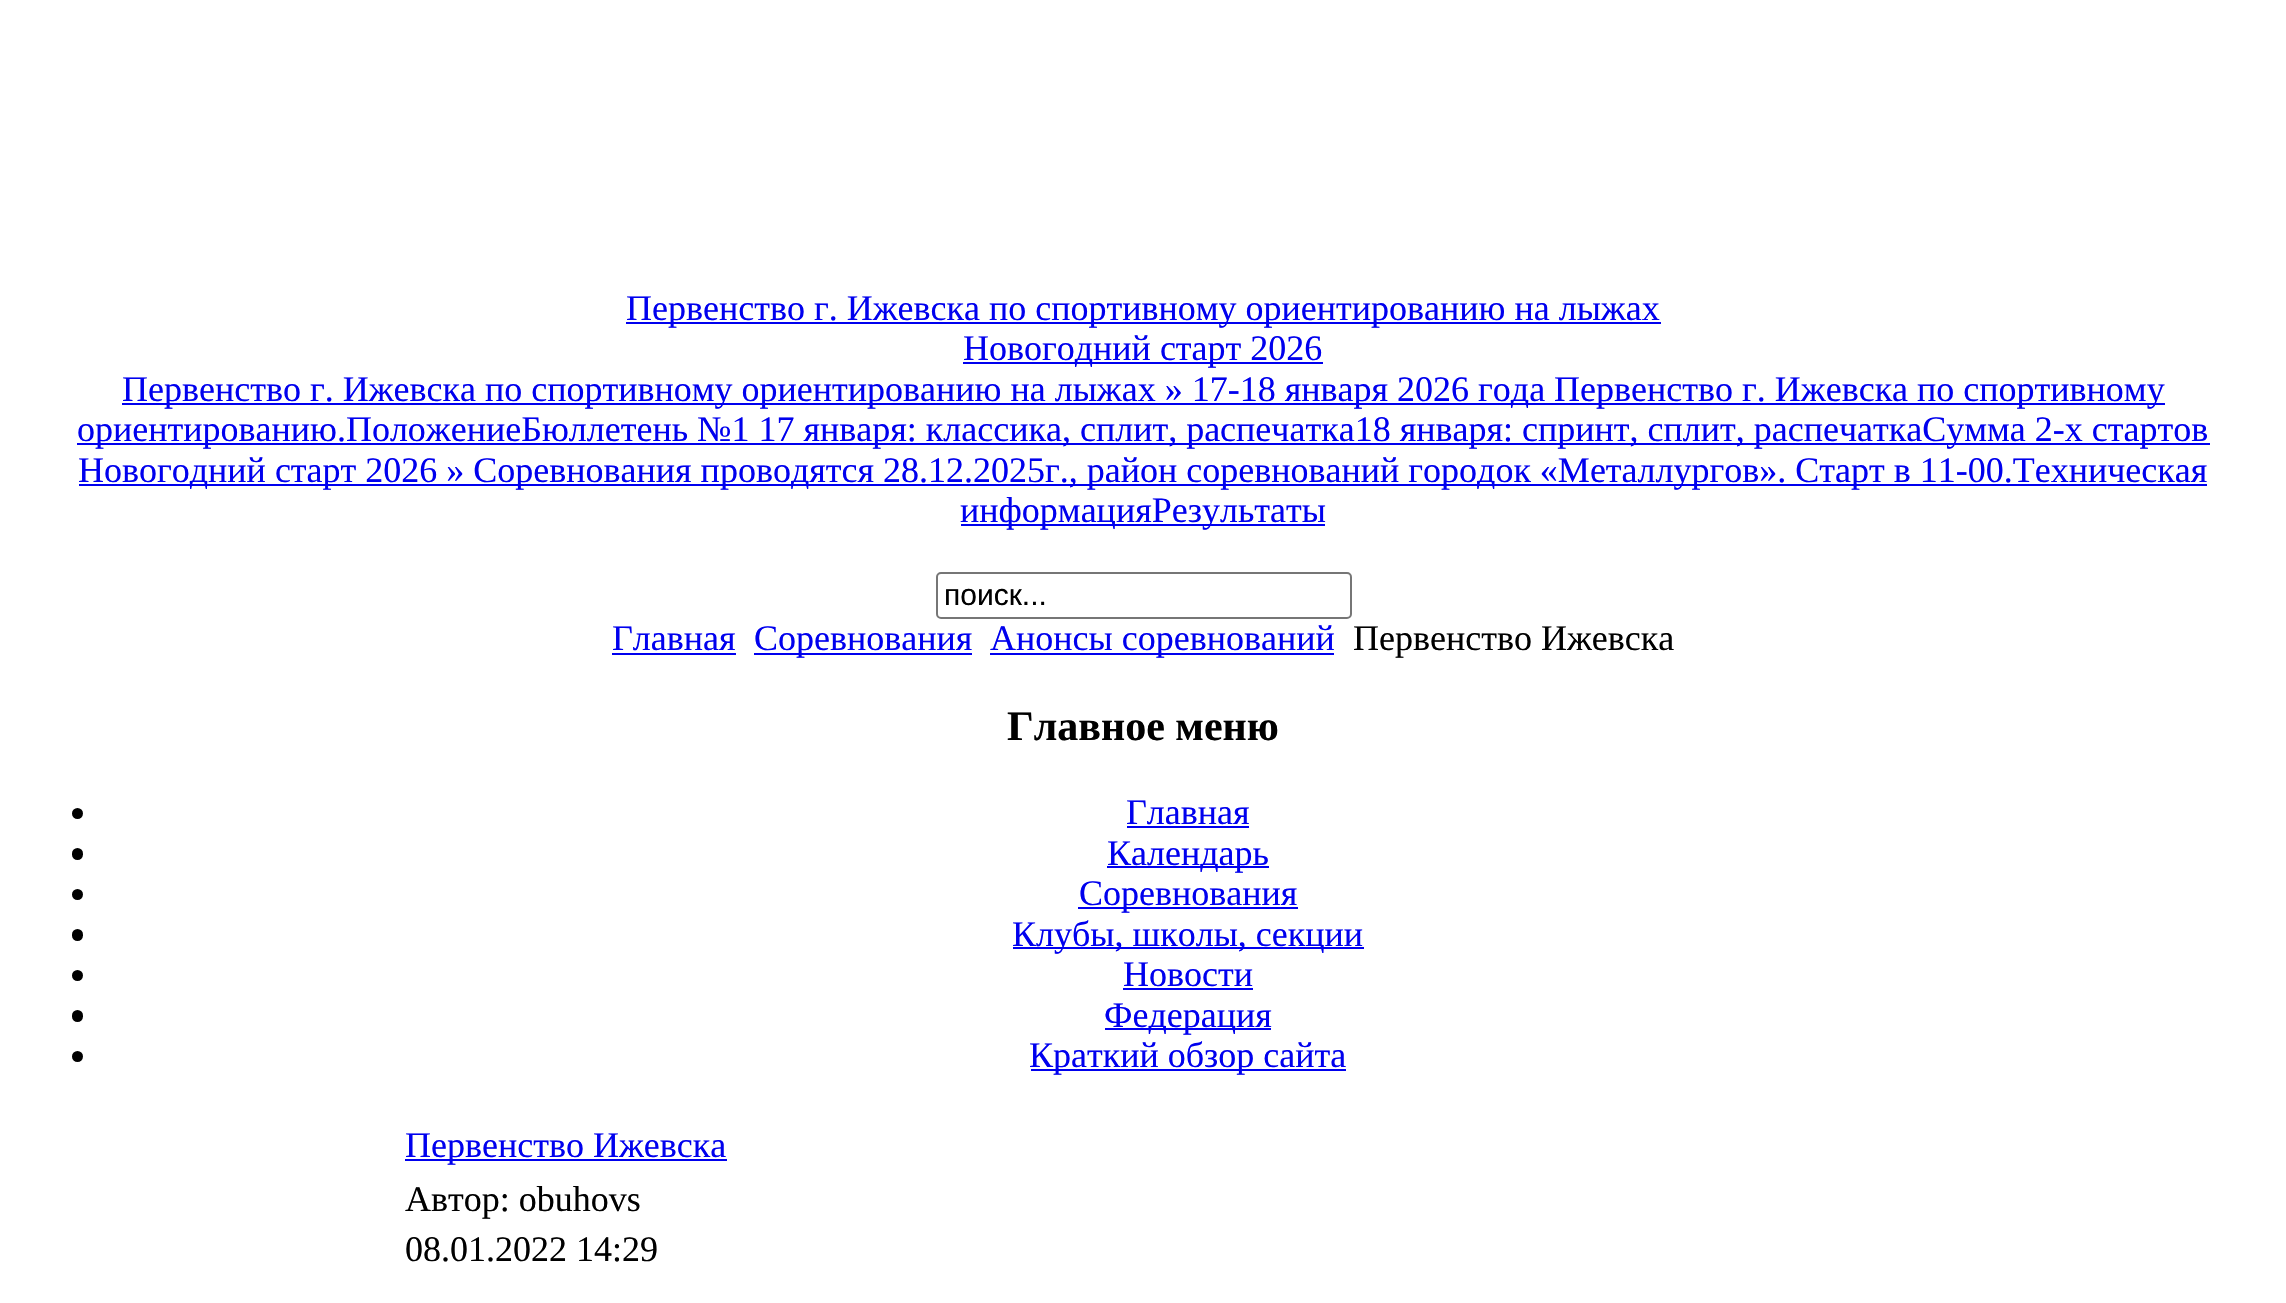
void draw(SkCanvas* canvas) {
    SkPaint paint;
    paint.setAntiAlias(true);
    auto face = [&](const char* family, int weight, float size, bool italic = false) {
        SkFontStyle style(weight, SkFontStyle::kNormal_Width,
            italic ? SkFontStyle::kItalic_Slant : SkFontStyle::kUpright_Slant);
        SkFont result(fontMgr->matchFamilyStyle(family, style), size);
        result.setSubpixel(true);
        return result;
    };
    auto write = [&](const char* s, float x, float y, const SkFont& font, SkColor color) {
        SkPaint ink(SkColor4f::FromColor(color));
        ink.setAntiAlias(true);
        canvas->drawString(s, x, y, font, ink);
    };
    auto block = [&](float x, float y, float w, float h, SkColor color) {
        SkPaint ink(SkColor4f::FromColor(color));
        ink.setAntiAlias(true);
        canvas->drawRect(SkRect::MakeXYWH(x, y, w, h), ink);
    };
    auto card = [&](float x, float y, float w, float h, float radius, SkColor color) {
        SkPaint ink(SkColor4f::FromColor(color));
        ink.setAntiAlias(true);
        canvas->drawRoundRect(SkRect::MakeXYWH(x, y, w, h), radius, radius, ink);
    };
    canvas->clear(SK_ColorWHITE);
    block(626, 322, 1035, 2, SkColorSetRGB(0, 0, 238));
    auto kFont1 = face("Liberation Serif", 400, 36);
    write("Первенство г. Ижевска по спортивному ориентированию на лыжах", 626, 320, kFont1, SkColorSetRGB(0, 0, 238));
    block(963, 362, 360, 2, SkColorSetRGB(0, 0, 238));
    write("Новогодний старт 2026", 963, 360, kFont1, SkColorSetRGB(0, 0, 238));
    block(122, 403, 2043, 2, SkColorSetRGB(0, 0, 238));
    write("Первенство г. Ижевска по спортивному ориентированию на лыжах » 17-18 января 2026 года Первенство г. Ижевска по спортивному", 122, 401, kFont1, SkColorSetRGB(0, 0, 238));
    block(77, 443, 2133, 2, SkColorSetRGB(0, 0, 238));
    write("ориентированию.ПоложениеБюллетень №1 17 января: классика, сплит, распечатка18 января: спринт, сплит, распечаткаСумма 2-х стартов", 77, 441, kFont1, SkColorSetRGB(0, 0, 238));
    block(79, 484, 2128, 2, SkColorSetRGB(0, 0, 238));
    write("Новогодний старт 2026 » Соревнования проводятся 28.12.2025г., район соревнований городок «Металлургов». Старт в 11-00.Техническая", 78, 482, kFont1, SkColorSetRGB(0, 0, 238));
    block(961, 524, 364, 2, SkColorSetRGB(0, 0, 238));
    write("информацияРезультаты", 960, 522, kFont1, SkColorSetRGB(0, 0, 238));
    paint.setStyle(SkPaint::kStroke_Style);
    paint.setStrokeWidth(2);
    paint.setColor(SkColorSetRGB(118, 118, 118));
    canvas->drawRoundRect(SkRect::MakeXYWH(937, 573, 414, 45), 4, 4, paint);
    auto kFont2 = face("Liberation Sans", 400, 30);
    write("поиск...", 944, 605, kFont2, SK_ColorBLACK);
    write("Главная", 612, 650, kFont1, SkColorSetRGB(0, 0, 238));
    block(612, 653, 124, 2, SkColorSetRGB(0, 0, 238));
    block(754, 653, 218, 2, SkColorSetRGB(0, 0, 238));
    write("Соревнования", 754, 650, kFont1, SkColorSetRGB(0, 0, 238));
    block(990, 653, 344, 2, SkColorSetRGB(0, 0, 238));
    write("Анонсы соревнований", 990, 650, kFont1, SkColorSetRGB(0, 0, 238));
    write("Первенство Ижевска", 1353, 650, kFont1, SK_ColorBLACK);
    auto kFont3 = face("Liberation Serif", 700, 42);
    write("Главное меню", 1007, 740, kFont3, SK_ColorBLACK);
    paint.setStyle(SkPaint::kFill_Style);
    paint.setColor(SK_ColorBLACK);
    canvas->drawCircle(77.5f, 813.5f, 5.5f, paint);
    write("Главная", 1126, 824, kFont1, SkColorSetRGB(0, 0, 238));
    block(1127, 826, 122, 2, SkColorSetRGB(0, 0, 238));
    card(72, 848, 11, 12, 5.5f, SK_ColorBLACK);
    block(1107, 866, 162, 2, SkColorSetRGB(0, 0, 238));
    write("Календарь", 1107, 865, kFont1, SkColorSetRGB(0, 0, 238));
    canvas->drawCircle(77.5f, 894.5f, 5.5f, paint);
    block(1078, 907, 220, 2, SkColorSetRGB(0, 0, 238));
    write("Соревнования", 1079, 905, kFont1, SkColorSetRGB(0, 0, 238));
    card(72, 929, 11, 12, 5.5f, SK_ColorBLACK);
    block(1013, 947, 351, 2, SkColorSetRGB(0, 0, 238));
    write("Клубы, школы, секции", 1012, 946, kFont1, SkColorSetRGB(0, 0, 238));
    canvas->drawCircle(77.5f, 975.5f, 5.5f, paint);
    write("Новости", 1123, 986, kFont1, SkColorSetRGB(0, 0, 238));
    block(1123, 988, 130, 2, SkColorSetRGB(0, 0, 238));
    card(72, 1010, 11, 12, 5.5f, SK_ColorBLACK);
    block(1105, 1028, 166, 2, SkColorSetRGB(0, 0, 238));
    write("Федерация", 1104, 1027, kFont1, SkColorSetRGB(0, 0, 238));
    canvas->drawCircle(77.5f, 1056.5f, 5.5f, paint);
    block(1031, 1069, 315, 2, SkColorSetRGB(0, 0, 238));
    write("Краткий обзор сайта", 1029, 1067, kFont1, SkColorSetRGB(0, 0, 238));
    block(405, 1159, 322, 2, SkColorSetRGB(0, 0, 238));
    write("Первенство Ижевска", 405, 1157, kFont1, SkColorSetRGB(0, 0, 238));
    write("Автор: obuhovs", 405, 1211, kFont1, SK_ColorBLACK);
    write("08.01.2022 14:29", 405, 1261, kFont1, SK_ColorBLACK);
}
